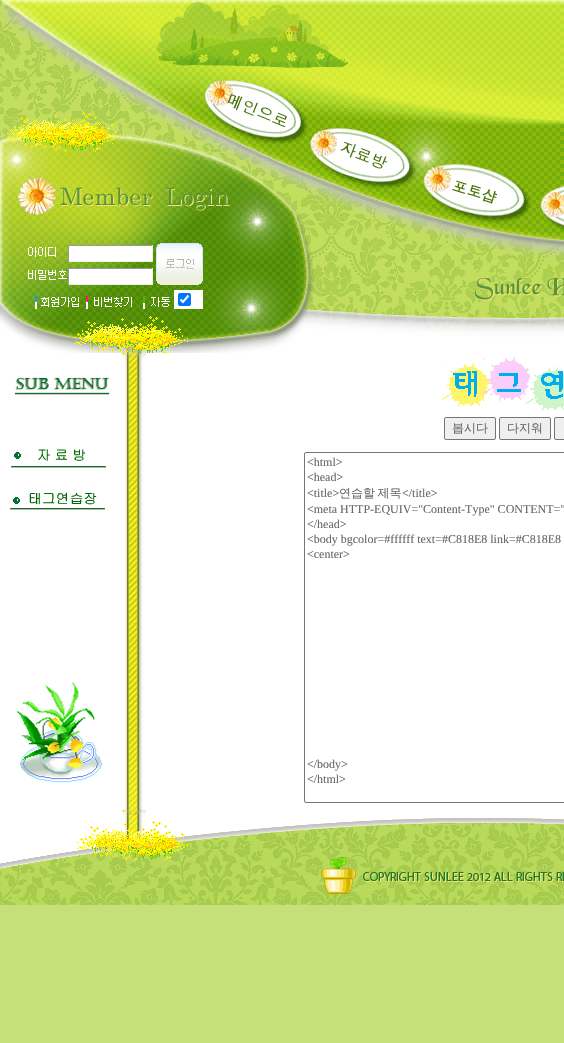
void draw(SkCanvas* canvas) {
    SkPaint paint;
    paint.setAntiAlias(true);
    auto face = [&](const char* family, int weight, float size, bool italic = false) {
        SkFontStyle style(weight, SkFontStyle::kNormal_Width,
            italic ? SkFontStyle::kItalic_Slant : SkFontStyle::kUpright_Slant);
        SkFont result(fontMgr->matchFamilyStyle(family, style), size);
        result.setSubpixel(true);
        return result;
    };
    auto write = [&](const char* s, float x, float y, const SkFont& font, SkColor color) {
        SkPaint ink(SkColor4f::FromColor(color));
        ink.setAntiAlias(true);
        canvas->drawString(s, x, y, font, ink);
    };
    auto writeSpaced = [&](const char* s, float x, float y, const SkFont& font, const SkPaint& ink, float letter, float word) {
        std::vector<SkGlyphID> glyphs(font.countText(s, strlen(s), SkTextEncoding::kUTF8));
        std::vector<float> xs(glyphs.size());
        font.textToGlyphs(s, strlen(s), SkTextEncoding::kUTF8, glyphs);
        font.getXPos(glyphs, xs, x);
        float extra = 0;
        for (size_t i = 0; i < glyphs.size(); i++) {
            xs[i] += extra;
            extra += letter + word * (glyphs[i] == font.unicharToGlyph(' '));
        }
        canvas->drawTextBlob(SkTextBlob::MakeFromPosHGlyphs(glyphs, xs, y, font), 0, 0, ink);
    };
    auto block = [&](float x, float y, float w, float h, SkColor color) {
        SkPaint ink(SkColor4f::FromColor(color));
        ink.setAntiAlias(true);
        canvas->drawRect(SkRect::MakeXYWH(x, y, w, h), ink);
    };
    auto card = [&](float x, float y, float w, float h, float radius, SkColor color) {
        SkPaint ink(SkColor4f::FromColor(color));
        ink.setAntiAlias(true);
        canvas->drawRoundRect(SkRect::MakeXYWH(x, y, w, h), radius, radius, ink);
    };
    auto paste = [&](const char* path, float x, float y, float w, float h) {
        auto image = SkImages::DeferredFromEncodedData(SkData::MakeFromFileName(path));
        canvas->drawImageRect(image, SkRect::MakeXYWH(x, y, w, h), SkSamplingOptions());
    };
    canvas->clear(SkColorSetRGB(197, 224, 120));
    paste("pic1.png", 0, 0, 122, 85);
    paste("pic2.png", 122, 0, 24, 85);
    paste("pic3.png", 146, 0, 418, 85);
    paste("pic4.png", 0, 85, 122, 131);
    paste("pic5.png", 122, 85, 24, 131);
    paste("pic6.png", 146, 85, 418, 131);
    paste("pic7.png", 0, 216, 230, 137);
    paste("pic8.png", 28, 247, 28, 10);
    block(69, 246, 83, 15, SK_ColorWHITE);
    block(68, 245, 85, 1, SkColorSetRGB(153, 153, 153));
    block(152, 245, 1, 17, SkColorSetRGB(238, 238, 238));
    block(68, 261, 85, 1, SkColorSetRGB(238, 238, 238));
    block(68, 245, 1, 17, SkColorSetRGB(153, 153, 153));
    paste("pic9.png", 156, 243, 47, 42);
    paste("pic10.png", 28, 270, 39, 10);
    block(69, 269, 83, 15, SK_ColorWHITE);
    block(68, 268, 85, 1, SkColorSetRGB(153, 153, 153));
    block(152, 268, 1, 17, SkColorSetRGB(238, 238, 238));
    block(68, 284, 85, 1, SkColorSetRGB(238, 238, 238));
    block(68, 268, 1, 17, SkColorSetRGB(153, 153, 153));
    paste("pic11.png", 35, 296, 44, 13);
    paste("pic12.png", 86, 296, 46, 13);
    paste("pic13.png", 143, 296, 27, 13);
    block(174, 290, 29, 19, SK_ColorWHITE);
    card(178, 293, 13, 13, 2, SkColorSetRGB(0, 117, 255));
    paint.setStyle(SkPaint::kStroke_Style);
    paint.setStrokeWidth(2.1f);
    paint.setColor(SK_ColorWHITE);
    canvas->drawPath(SkPathBuilder().moveTo(180.5f, 299.5f).lineTo(183, 302).lineTo(188.5f, 295.5f).detach(), paint);
    paste("pic14.png", 230, 216, 334, 137);
    block(0, 353, 122, 462, SK_ColorWHITE);
    paste("pic15.png", 10, 377, 100, 406);
    paste("pic16.png", 122, 353, 24, 462);
    block(146, 353, 418, 462, SK_ColorWHITE);
    paste("pic17.png", 442, 357, 122, 54);
    paint.setStyle(SkPaint::kFill_Style);
    paint.setColor(SkColorSetRGB(239, 239, 239));
    canvas->drawRoundRect(SkRect::MakeXYWH(444.5f, 417.5f, 51, 22), 1.5f, 1.5f, paint);
    paint.setStyle(SkPaint::kStroke_Style);
    paint.setStrokeWidth(1);
    paint.setColor(SkColorSetRGB(118, 118, 118));
    canvas->drawRoundRect(SkRect::MakeXYWH(444.5f, 417.5f, 51, 22), 1.5f, 1.5f, paint);
    auto kFont1 = face("WenQuanYi Zen Hei", 500, 12);
    write("봅시다", 452, 432, kFont1, SkColorSetRGB(102, 102, 102));
    paint.setStyle(SkPaint::kFill_Style);
    paint.setColor(SkColorSetRGB(239, 239, 239));
    canvas->drawRoundRect(SkRect::MakeXYWH(499.5f, 417.5f, 51, 22), 1.5f, 1.5f, paint);
    paint.setStyle(SkPaint::kStroke_Style);
    paint.setColor(SkColorSetRGB(118, 118, 118));
    canvas->drawRoundRect(SkRect::MakeXYWH(499.5f, 417.5f, 51, 22), 1.5f, 1.5f, paint);
    write("다지워", 507, 432, kFont1, SkColorSetRGB(102, 102, 102));
    paint.setStyle(SkPaint::kFill_Style);
    paint.setColor(SkColorSetRGB(239, 239, 239));
    canvas->drawRoundRect(SkRect::MakeXYWH(554.5f, 417.5f, 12, 22), 1.5f, 1.5f, paint);
    paint.setStyle(SkPaint::kStroke_Style);
    paint.setColor(SkColorSetRGB(118, 118, 118));
    canvas->drawRoundRect(SkRect::MakeXYWH(554.5f, 417.5f, 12, 22), 1.5f, 1.5f, paint);
    canvas->drawRoundRect(SkRect::MakeXYWH(304.5f, 452.5f, 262, 350), 1.5f, 1.5f, paint);
    auto kFont2 = face("Liberation Serif", 400, 12);
    write("<html>", 307, 466, kFont2, SkColorSetRGB(102, 102, 102));
    write("<head>", 307, 481, kFont2, SkColorSetRGB(102, 102, 102));
    write("<title>", 307, 497, kFont2, SkColorSetRGB(102, 102, 102));
    paint.setStyle(SkPaint::kFill_Style);
    paint.setColor(SkColorSetRGB(102, 102, 102));
    writeSpaced("연습할 제목", 339, 497, kFont1, paint, 0, -1);
    write("</title>", 402, 497, kFont2, SkColorSetRGB(102, 102, 102));
    write("<meta HTTP-EQUIV=\"Content-Type\" CONTENT=\"", 307, 513, kFont2, SkColorSetRGB(102, 102, 102));
    write("</head>", 307, 528, kFont2, SkColorSetRGB(102, 102, 102));
    write("<body bgcolor=#ffffff text=#C818E8 link=#C818E8", 307, 543, kFont2, SkColorSetRGB(102, 102, 102));
    write("<center>", 307, 558, kFont2, SkColorSetRGB(102, 102, 102));
    write("</body>", 307, 768, kFont2, SkColorSetRGB(102, 102, 102));
    write("</html>", 307, 783, kFont2, SkColorSetRGB(102, 102, 102));
    paste("pic18.png", 0, 815, 122, 90);
    paste("pic19.png", 122, 815, 24, 90);
    paste("pic20.png", 146, 815, 418, 90);
}
